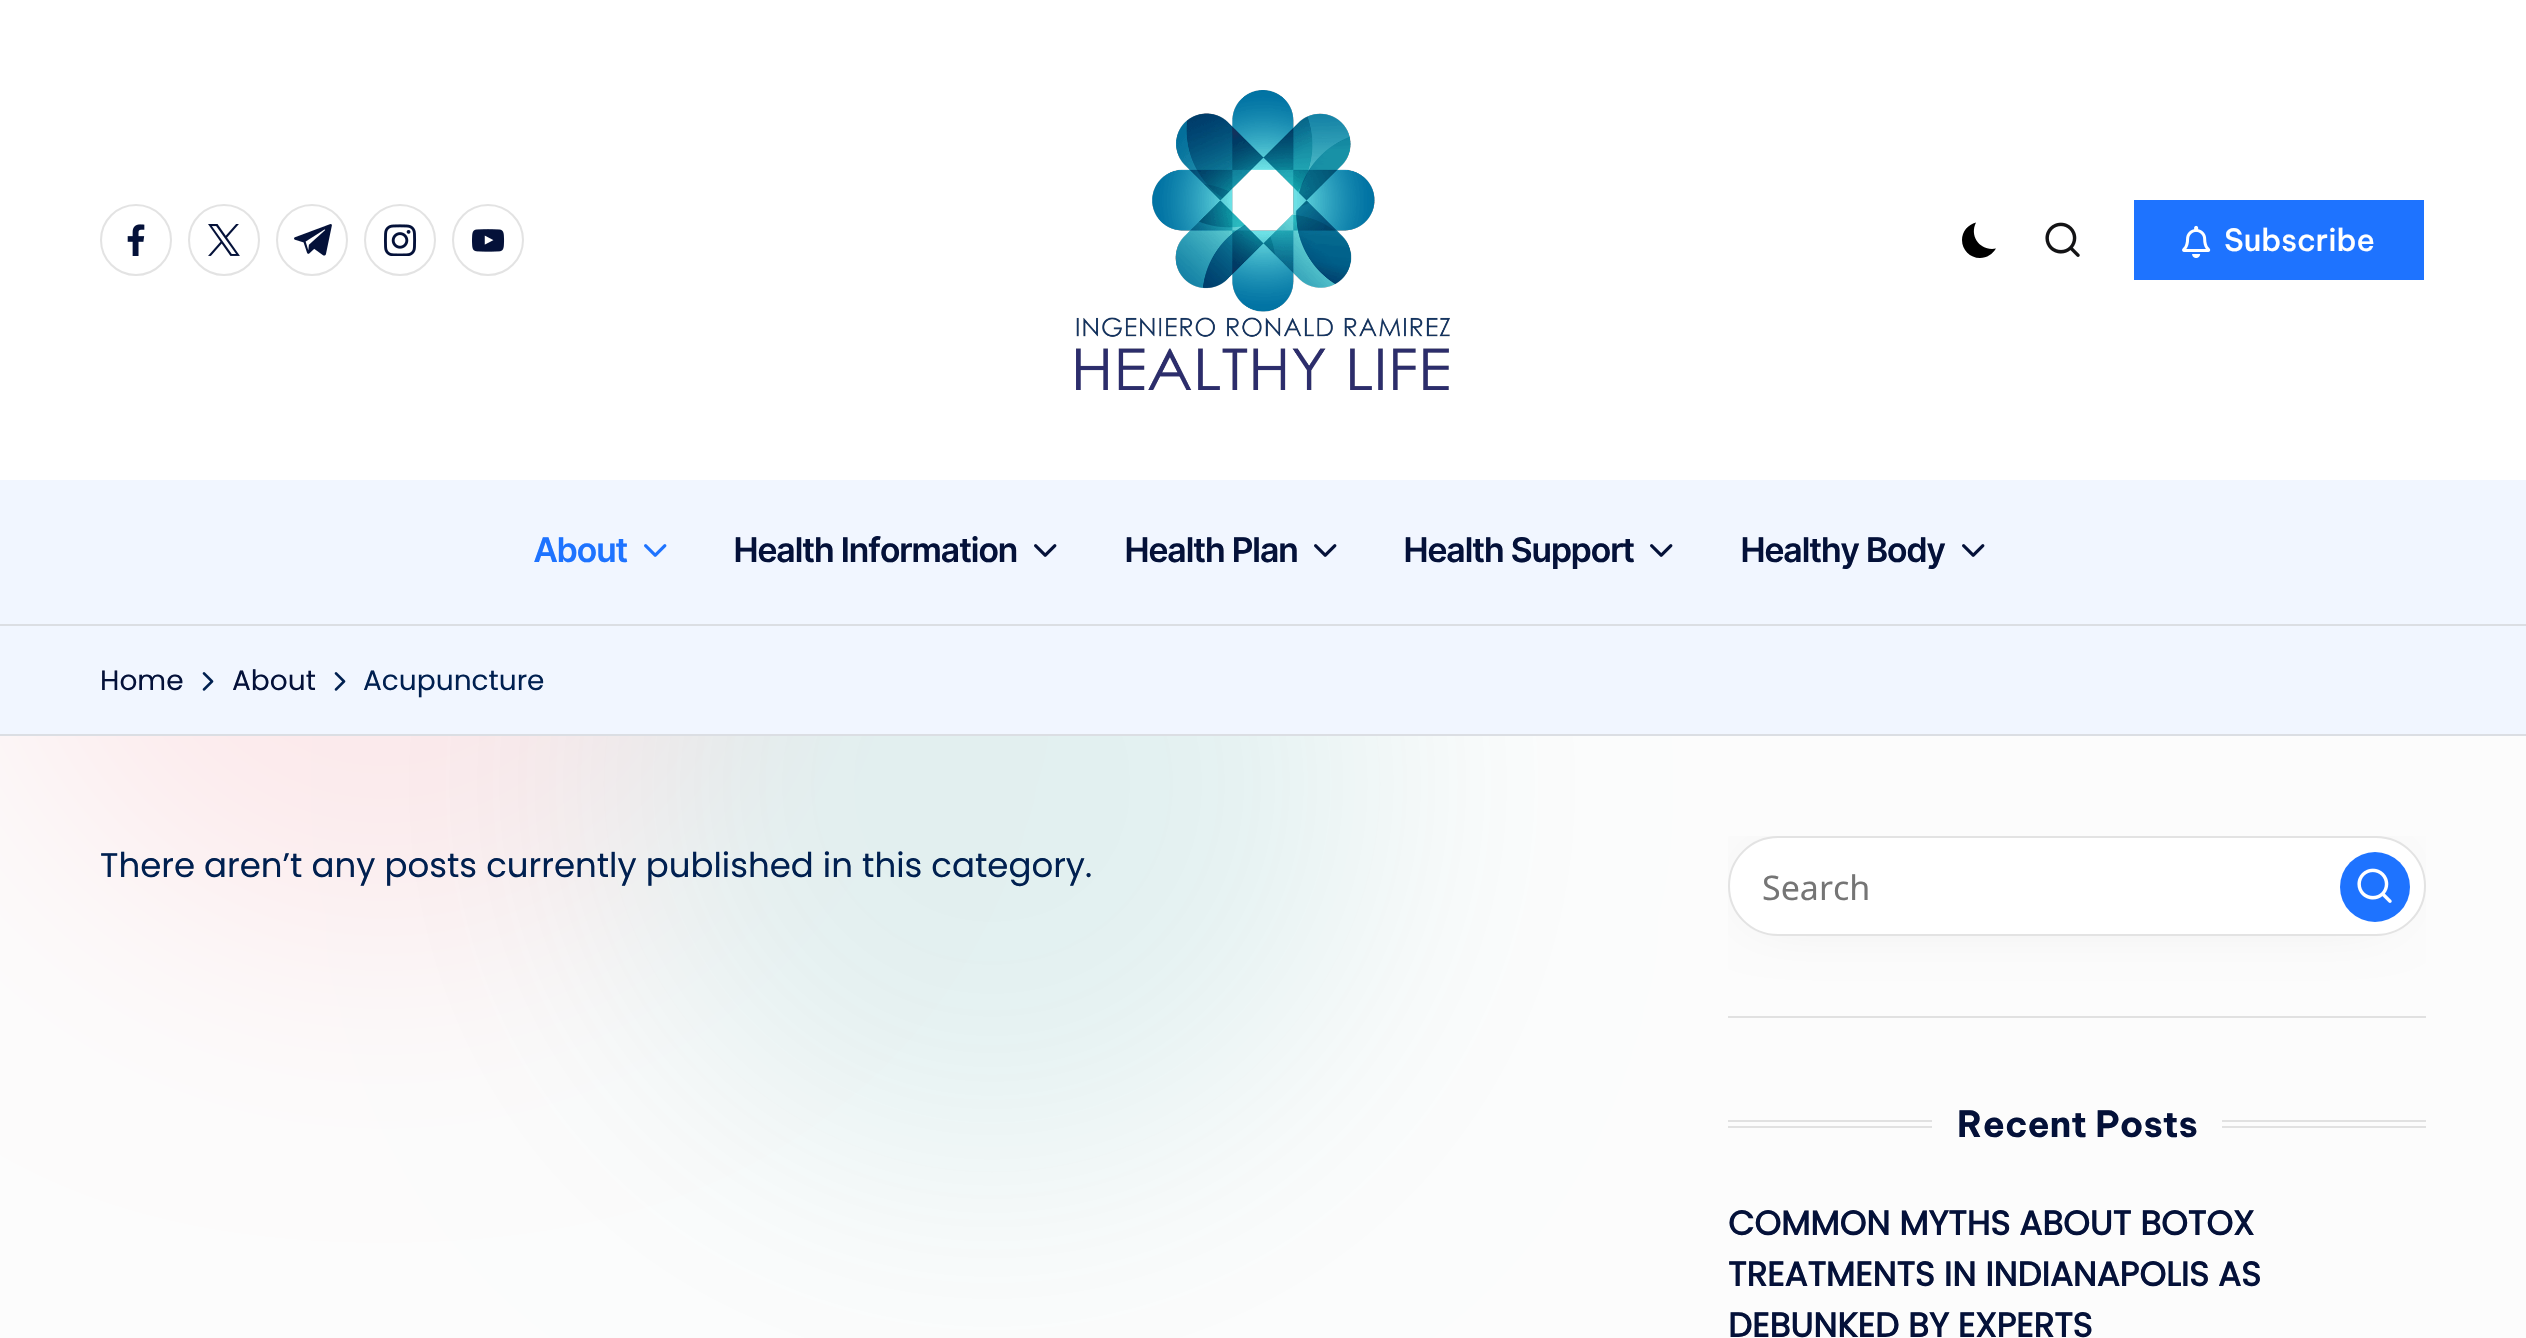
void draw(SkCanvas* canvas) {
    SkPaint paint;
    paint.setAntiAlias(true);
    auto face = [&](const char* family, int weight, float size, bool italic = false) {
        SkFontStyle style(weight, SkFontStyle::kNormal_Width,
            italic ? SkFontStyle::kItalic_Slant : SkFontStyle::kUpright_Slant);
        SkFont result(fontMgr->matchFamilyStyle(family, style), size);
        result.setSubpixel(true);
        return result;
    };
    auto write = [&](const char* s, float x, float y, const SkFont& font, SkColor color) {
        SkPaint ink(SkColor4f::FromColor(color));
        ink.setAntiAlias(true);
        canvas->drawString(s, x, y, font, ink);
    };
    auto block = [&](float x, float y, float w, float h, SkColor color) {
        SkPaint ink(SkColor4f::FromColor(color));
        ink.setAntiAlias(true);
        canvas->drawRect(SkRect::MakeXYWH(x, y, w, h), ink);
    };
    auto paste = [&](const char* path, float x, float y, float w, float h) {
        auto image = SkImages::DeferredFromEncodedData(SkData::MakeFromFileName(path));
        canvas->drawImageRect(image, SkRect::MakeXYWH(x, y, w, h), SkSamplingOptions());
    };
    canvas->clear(SkColorSetRGB(252, 252, 252));
    paint.setColor(SkColorSetRGB(253, 233, 235));
    paint.setMaskFilter(SkMaskFilter::MakeBlur(kNormal_SkBlurStyle, 128));
    canvas->drawRoundRect(SkRect::MakeXYWH(0, 180, 768, 768), 384, 384, paint);
    paint.setMaskFilter(nullptr);
    paint.setColor(SkColorSetARGB(26, 4, 134, 139));
    paint.setMaskFilter(SkMaskFilter::MakeBlur(kNormal_SkBlurStyle, 128));
    canvas->drawRoundRect(SkRect::MakeXYWH(608, 400, 768, 768), 384, 384, paint);
    paint.setMaskFilter(nullptr);
    block(0, 0, 2526, 480, SK_ColorWHITE);
    paint.setStyle(SkPaint::kStroke_Style);
    paint.setStrokeWidth(2);
    paint.setColor(SkColorSetRGB(227, 227, 227));
    canvas->drawCircle(136, 240, 35, paint);
    paste("pic1.png", 127, 224, 18, 32);
    canvas->drawCircle(224, 240, 35, paint);
    paste("pic2.png", 208, 224, 32, 32);
    canvas->drawCircle(312, 240, 35, paint);
    paste("pic3.png", 294, 224, 38, 32);
    canvas->drawCircle(400, 240, 35, paint);
    paste("pic4.png", 384, 224, 33, 32);
    canvas->drawCircle(488, 240, 35, paint);
    paste("pic5.png", 472, 229, 33, 23);
    paste("pic6.png", 1076, 90, 374, 300);
    paint.setStyle(SkPaint::kFill_Style);
    paint.setColor(SK_ColorBLACK);
    canvas->drawPath(SkPathBuilder().moveTo(1996, 248.5f).cubicTo(1980.5f, 251.5f, 1969, 236.5f, 1976, 222.5f).cubicTo(1968, 224.5f, 1962, 231.5f, 1962, 240).cubicTo(1962, 250, 1970, 258, 1980, 258).cubicTo(1987, 258, 1992.5f, 254, 1996, 248.5f).close().detach(), paint);
    paste("pic7.png", 2045, 222, 35, 35);
    block(2134, 200, 290, 80, SkColorSetRGB(30, 115, 255));
    paste("pic8.png", 2182, 225, 29, 33);
    auto kFont1 = face("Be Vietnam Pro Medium", 500, 30.5f);
    write("Subscribe", 2224, 251, kFont1, SK_ColorWHITE);
    block(0, 480, 2526, 144, SkColorSetRGB(241, 246, 255));
    auto kFont2 = face("Inter Tight", 600, 34);
    write("About", 534, 562, kFont2, SkColorSetRGB(30, 115, 255));
    paste("pic9.png", 644, 544, 23, 13);
    write("Health Information", 734, 562, kFont2, SkColorSetRGB(4, 17, 57));
    paste("pic10.png", 1034, 544, 23, 13);
    write("Health Plan", 1125, 562, kFont2, SkColorSetRGB(4, 17, 57));
    paste("pic10.png", 1314, 544, 23, 13);
    write("Health Support", 1404, 562, kFont2, SkColorSetRGB(4, 17, 57));
    paste("pic10.png", 1650, 544, 23, 13);
    write("Healthy Body", 1741, 562, kFont2, SkColorSetRGB(4, 17, 57));
    paste("pic10.png", 1962, 544, 23, 13);
    block(0, 626, 2526, 108, SkColorSetRGB(241, 246, 255));
    block(0, 624, 2526, 2, SkColorSetRGB(219, 222, 227));
    block(0, 734, 2526, 2, SkColorSetRGB(219, 222, 227));
    auto kFont3 = face("Poppins", 400, 28);
    write("Home", 100, 690, kFont3, SkColorSetRGB(4, 17, 57));
    paste("pic11.png", 202, 672, 12, 19);
    write("About", 232, 690, kFont3, SkColorSetRGB(4, 17, 57));
    paste("pic11.png", 334, 672, 12, 19);
    write("Acupuncture", 363, 690, kFont3, SkColorSetRGB(0, 32, 80));
    auto kFont4 = face("Poppins", 400, 34);
    write("There aren’t any posts currently published in this category.", 100, 877, kFont4, SkColorSetRGB(0, 32, 80));
    block(1728, 1016, 698, 2, SkColorSetRGB(225, 225, 225));
    canvas->save();
    canvas->clipRect(SkRect::MakeXYWH(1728, 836, 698, 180));
    paint.setColor(SkColorSetARGB(38, 0, 0, 0));
    paint.setMaskFilter(SkMaskFilter::MakeBlur(kNormal_SkBlurStyle, 32));
    canvas->drawRoundRect(SkRect::MakeXYWH(1754, 868, 634, 36), 18, 18, paint);
    paint.setMaskFilter(nullptr);
    canvas->restore();
    paint.setColor(SK_ColorWHITE);
    canvas->drawRoundRect(SkRect::MakeXYWH(1729, 837, 696, 98), 49, 49, paint);
    paint.setStyle(SkPaint::kStroke_Style);
    paint.setColor(SkColorSetRGB(227, 227, 227));
    canvas->drawRoundRect(SkRect::MakeXYWH(1729, 837, 696, 98), 49, 49, paint);
    auto kFont5 = face("Noto Sans", 400, 34);
    write("Search", 1762, 900, kFont5, SkColorSetRGB(117, 117, 117));
    paint.setStyle(SkPaint::kFill_Style);
    paint.setColor(SkColorSetRGB(30, 115, 255));
    canvas->drawCircle(2375, 887, 35, paint);
    paste("pic12.png", 2357, 868, 35, 35);
    block(1728, 1120, 204, 2, SkColorSetRGB(225, 225, 225));
    block(1728, 1126, 204, 2, SkColorSetRGB(225, 225, 225));
    auto kFont6 = face("Be Vietnam Pro", 700, 36);
    write("Recent Posts", 1957, 1137, kFont6, SkColorSetRGB(4, 17, 57));
    block(2222, 1120, 204, 2, SkColorSetRGB(225, 225, 225));
    block(2222, 1126, 204, 2, SkColorSetRGB(225, 225, 225));
    auto kFont7 = face("Poppins", 700, 34);
    write("COMMON MYTHS ABOUT BOTOX", 1728, 1235, kFont7, SkColorSetRGB(4, 17, 57));
    write("TREATMENTS IN INDIANAPOLIS AS", 1728, 1286, kFont7, SkColorSetRGB(4, 17, 57));
    write("DEBUNKED BY EXPERTS", 1728, 1337, kFont7, SkColorSetRGB(4, 17, 57));
}
